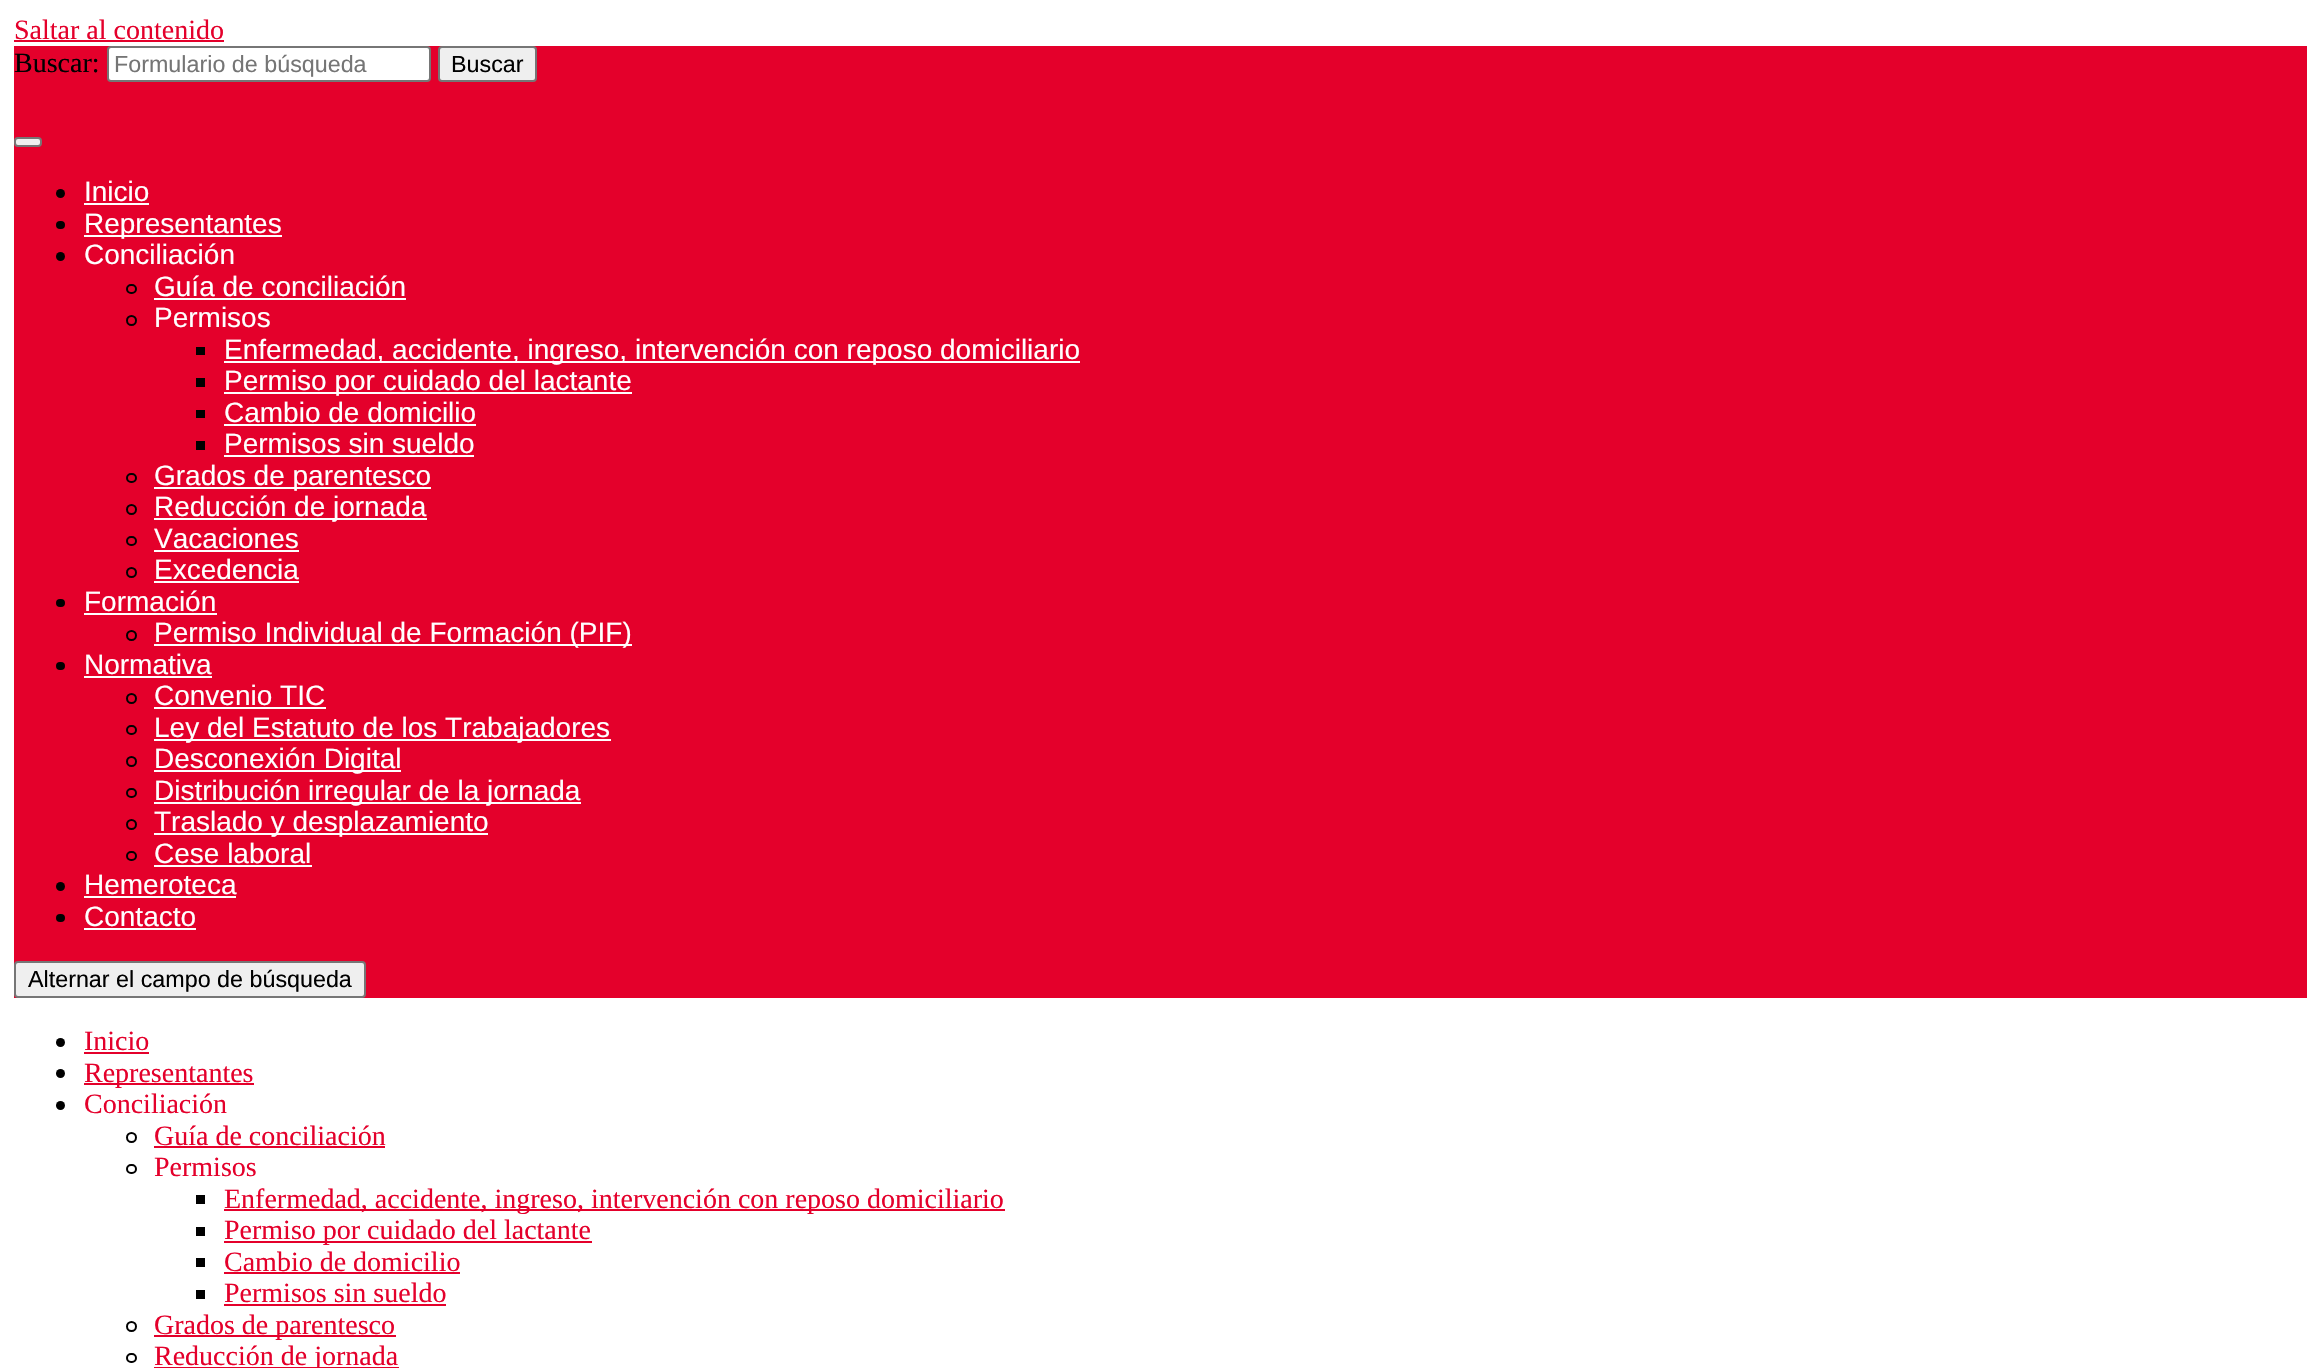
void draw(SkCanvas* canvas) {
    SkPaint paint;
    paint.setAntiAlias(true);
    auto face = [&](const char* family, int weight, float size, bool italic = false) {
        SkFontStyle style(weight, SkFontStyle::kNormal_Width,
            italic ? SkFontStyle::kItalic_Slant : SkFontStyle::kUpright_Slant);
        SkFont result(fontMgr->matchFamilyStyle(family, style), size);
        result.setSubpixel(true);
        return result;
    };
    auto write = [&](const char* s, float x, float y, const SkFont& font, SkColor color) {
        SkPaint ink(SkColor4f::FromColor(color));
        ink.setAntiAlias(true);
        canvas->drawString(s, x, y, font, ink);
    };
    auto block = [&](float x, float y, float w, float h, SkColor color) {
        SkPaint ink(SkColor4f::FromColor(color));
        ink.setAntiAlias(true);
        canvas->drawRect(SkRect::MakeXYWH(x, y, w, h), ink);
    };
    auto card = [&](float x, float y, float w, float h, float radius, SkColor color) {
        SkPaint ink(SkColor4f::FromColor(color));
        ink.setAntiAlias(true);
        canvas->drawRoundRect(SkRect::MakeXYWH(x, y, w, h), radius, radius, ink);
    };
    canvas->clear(SK_ColorWHITE);
    auto kFont1 = face("Liberation Serif", 400, 28);
    write("Saltar al contenido", 14, 39, kFont1, SkColorSetRGB(228, 0, 43));
    block(14, 40, 210, 2, SkColorSetRGB(228, 0, 43));
    block(14, 46, 2293, 952, SkColorSetRGB(228, 0, 43));
    write("Buscar:", 14, 72, kFont1, SK_ColorBLACK);
    paint.setColor(SK_ColorWHITE);
    canvas->drawRoundRect(SkRect::MakeXYWH(108, 47, 322, 34), 3, 3, paint);
    paint.setStyle(SkPaint::kStroke_Style);
    paint.setStrokeWidth(2);
    paint.setColor(SkColorSetRGB(118, 118, 118));
    canvas->drawRoundRect(SkRect::MakeXYWH(108, 47, 322, 34), 3, 3, paint);
    auto kFont2 = face("Liberation Sans", 400, 23.3f);
    write("Formulario de búsqueda", 114, 72, kFont2, SkColorSetRGB(117, 117, 117));
    paint.setStyle(SkPaint::kFill_Style);
    paint.setColor(SkColorSetRGB(239, 239, 239));
    canvas->drawRoundRect(SkRect::MakeXYWH(439, 47, 97, 34), 3, 3, paint);
    paint.setStyle(SkPaint::kStroke_Style);
    paint.setColor(SkColorSetRGB(118, 118, 118));
    canvas->drawRoundRect(SkRect::MakeXYWH(439, 47, 97, 34), 3, 3, paint);
    write("Buscar", 451, 72, kFont2, SK_ColorBLACK);
    paint.setStyle(SkPaint::kFill_Style);
    paint.setColor(SkColorSetRGB(239, 239, 239));
    canvas->drawRoundRect(SkRect::MakeXYWH(15, 138, 26, 8), 3, 3, paint);
    paint.setStyle(SkPaint::kStroke_Style);
    paint.setColor(SkColorSetRGB(118, 118, 118));
    canvas->drawRoundRect(SkRect::MakeXYWH(15, 138, 26, 8), 3, 3, paint);
    paint.setStyle(SkPaint::kFill_Style);
    paint.setColor(SK_ColorBLACK);
    canvas->drawCircle(60.5f, 193.5f, 4.5f, paint);
    auto kFont3 = face("Liberation Sans", 400, 28);
    write("Inicio", 84, 201, kFont3, SK_ColorWHITE);
    block(84, 203, 65, 2, SK_ColorWHITE);
    card(56, 221, 9, 8, 4, SK_ColorBLACK);
    block(84, 235, 198, 2, SK_ColorWHITE);
    write("Representantes", 84, 233, kFont3, SK_ColorWHITE);
    canvas->drawCircle(60.5f, 256.5f, 4.5f, paint);
    write("Conciliación", 84, 264, kFont3, SK_ColorWHITE);
    paint.setStyle(SkPaint::kStroke_Style);
    canvas->drawRoundRect(SkRect::MakeXYWH(127, 285, 9, 8), 4, 4, paint);
    write("Guía de conciliación", 154, 296, kFont3, SK_ColorWHITE);
    block(154, 298, 252, 2, SK_ColorWHITE);
    canvas->drawCircle(131.5f, 320.5f, 4.5f, paint);
    write("Permisos", 154, 327, kFont3, SK_ColorWHITE);
    block(196, 347, 9, 8, SK_ColorBLACK);
    block(224, 361, 856, 2, SK_ColorWHITE);
    write("Enfermedad, accidente, ingreso, intervención con reposo domiciliario", 224, 359, kFont3, SK_ColorWHITE);
    block(196, 378, 9, 9, SK_ColorBLACK);
    block(224, 392, 408, 2, SK_ColorWHITE);
    write("Permiso por cuidado del lactante", 224, 390, kFont3, SK_ColorWHITE);
    block(196, 410, 9, 8, SK_ColorBLACK);
    write("Cambio de domicilio", 224, 422, kFont3, SK_ColorWHITE);
    block(224, 424, 252, 2, SK_ColorWHITE);
    block(196, 441, 9, 9, SK_ColorBLACK);
    write("Permisos sin sueldo", 224, 453, kFont3, SK_ColorWHITE);
    block(224, 455, 250, 2, SK_ColorWHITE);
    canvas->drawRoundRect(SkRect::MakeXYWH(127, 474, 9, 8), 4, 4, paint);
    block(154, 487, 277, 2, SK_ColorWHITE);
    write("Grados de parentesco", 154, 485, kFont3, SK_ColorWHITE);
    canvas->drawCircle(131.5f, 509.5f, 4.5f, paint);
    block(154, 518, 273, 2, SK_ColorWHITE);
    write("Reducción de jornada", 154, 516, kFont3, SK_ColorWHITE);
    canvas->drawRoundRect(SkRect::MakeXYWH(127, 537, 9, 8), 4, 4, paint);
    write("Vacaciones", 154, 548, kFont3, SK_ColorWHITE);
    block(154, 550, 145, 2, SK_ColorWHITE);
    canvas->drawCircle(131.5f, 572.5f, 4.5f, paint);
    write("Excedencia", 154, 579, kFont3, SK_ColorWHITE);
    block(154, 581, 145, 2, SK_ColorWHITE);
    card(56, 599, 9, 8, 4, SK_ColorBLACK);
    write("Formación", 84, 611, kFont3, SK_ColorWHITE);
    block(84, 613, 133, 2, SK_ColorWHITE);
    canvas->drawCircle(131.5f, 635.5f, 4.5f, paint);
    block(154, 644, 478, 2, SK_ColorWHITE);
    write("Permiso Individual de Formación (PIF)", 154, 642, kFont3, SK_ColorWHITE);
    card(56, 662, 9, 8, 4, SK_ColorBLACK);
    write("Normativa", 84, 674, kFont3, SK_ColorWHITE);
    block(84, 676, 128, 2, SK_ColorWHITE);
    canvas->drawCircle(131.5f, 698.5f, 4.5f, paint);
    write("Convenio TIC", 154, 705, kFont3, SK_ColorWHITE);
    block(154, 707, 172, 2, SK_ColorWHITE);
    canvas->drawRoundRect(SkRect::MakeXYWH(127, 726, 9, 8), 4, 4, paint);
    block(154, 739, 457, 2, SK_ColorWHITE);
    write("Ley del Estatuto de los Trabajadores", 154, 737, kFont3, SK_ColorWHITE);
    canvas->drawCircle(131.5f, 761.5f, 4.5f, paint);
    block(154, 770, 247, 2, SK_ColorWHITE);
    write("Desconexión Digital", 154, 768, kFont3, SK_ColorWHITE);
    canvas->drawRoundRect(SkRect::MakeXYWH(127, 789, 9, 8), 4, 4, paint);
    block(154, 802, 427, 2, SK_ColorWHITE);
    write("Distribución irregular de la jornada", 154, 800, kFont3, SK_ColorWHITE);
    canvas->drawCircle(131.5f, 824.5f, 4.5f, paint);
    block(154, 833, 334, 2, SK_ColorWHITE);
    write("Traslado y desplazamiento", 154, 831, kFont3, SK_ColorWHITE);
    canvas->drawRoundRect(SkRect::MakeXYWH(127, 852, 9, 8), 4, 4, paint);
    write("Cese laboral", 154, 863, kFont3, SK_ColorWHITE);
    block(154, 865, 158, 2, SK_ColorWHITE);
    paint.setStyle(SkPaint::kFill_Style);
    canvas->drawCircle(60.5f, 886.5f, 4.5f, paint);
    write("Hemeroteca", 84, 894, kFont3, SK_ColorWHITE);
    block(84, 896, 152, 2, SK_ColorWHITE);
    card(56, 914, 9, 8, 4, SK_ColorBLACK);
    write("Contacto", 84, 926, kFont3, SK_ColorWHITE);
    block(84, 928, 112, 2, SK_ColorWHITE);
    paint.setColor(SkColorSetRGB(239, 239, 239));
    canvas->drawRoundRect(SkRect::MakeXYWH(15, 962, 350, 35), 3, 3, paint);
    paint.setStyle(SkPaint::kStroke_Style);
    paint.setColor(SkColorSetRGB(118, 118, 118));
    canvas->drawRoundRect(SkRect::MakeXYWH(15, 962, 350, 35), 3, 3, paint);
    write("Alternar el campo de búsqueda", 28, 987, kFont2, SK_ColorBLACK);
    paint.setStyle(SkPaint::kFill_Style);
    paint.setColor(SK_ColorBLACK);
    canvas->drawCircle(60.5f, 1042.5f, 4.5f, paint);
    write("Inicio", 84, 1050, kFont1, SkColorSetRGB(228, 0, 43));
    block(84, 1052, 65, 2, SkColorSetRGB(228, 0, 43));
    canvas->drawCircle(60.5f, 1073.5f, 4.5f, paint);
    block(84, 1083, 170, 2, SkColorSetRGB(228, 0, 43));
    write("Representantes", 84, 1082, kFont1, SkColorSetRGB(228, 0, 43));
    canvas->drawCircle(60.5f, 1105.5f, 4.5f, paint);
    write("Conciliación", 84, 1113, kFont1, SkColorSetRGB(228, 0, 43));
    paint.setStyle(SkPaint::kStroke_Style);
    canvas->drawCircle(131.5f, 1137.5f, 4.5f, paint);
    write("Guía de conciliación", 154, 1145, kFont1, SkColorSetRGB(228, 0, 43));
    block(154, 1146, 231, 2, SkColorSetRGB(228, 0, 43));
    canvas->drawRoundRect(SkRect::MakeXYWH(127, 1165, 9, 8), 4, 4, paint);
    write("Permisos", 154, 1176, kFont1, SkColorSetRGB(228, 0, 43));
    block(196, 1195, 9, 9, SK_ColorBLACK);
    block(224, 1209, 781, 2, SkColorSetRGB(228, 0, 43));
    write("Enfermedad, accidente, ingreso, intervención con reposo domiciliario", 224, 1208, kFont1, SkColorSetRGB(228, 0, 43));
    block(196, 1227, 9, 9, SK_ColorBLACK);
    block(224, 1241, 368, 2, SkColorSetRGB(228, 0, 43));
    write("Permiso por cuidado del lactante", 224, 1239, kFont1, SkColorSetRGB(228, 0, 43));
    block(196, 1258, 9, 9, SK_ColorBLACK);
    write("Cambio de domicilio", 224, 1271, kFont1, SkColorSetRGB(228, 0, 43));
    block(224, 1272, 236, 2, SkColorSetRGB(228, 0, 43));
    block(196, 1290, 9, 9, SK_ColorBLACK);
    write("Permisos sin sueldo", 224, 1302, kFont1, SkColorSetRGB(228, 0, 43));
    block(224, 1304, 222, 2, SkColorSetRGB(228, 0, 43));
    canvas->drawCircle(131.5f, 1326.5f, 4.5f, paint);
    block(154, 1335, 242, 2, SkColorSetRGB(228, 0, 43));
    write("Grados de parentesco", 154, 1334, kFont1, SkColorSetRGB(228, 0, 43));
    canvas->drawRoundRect(SkRect::MakeXYWH(127, 1354, 9, 8), 4, 4, paint);
    block(154, 1367, 245, 1, SkColorSetRGB(228, 0, 43));
    write("Reducción de jornada", 154, 1365, kFont1, SkColorSetRGB(228, 0, 43));
}
